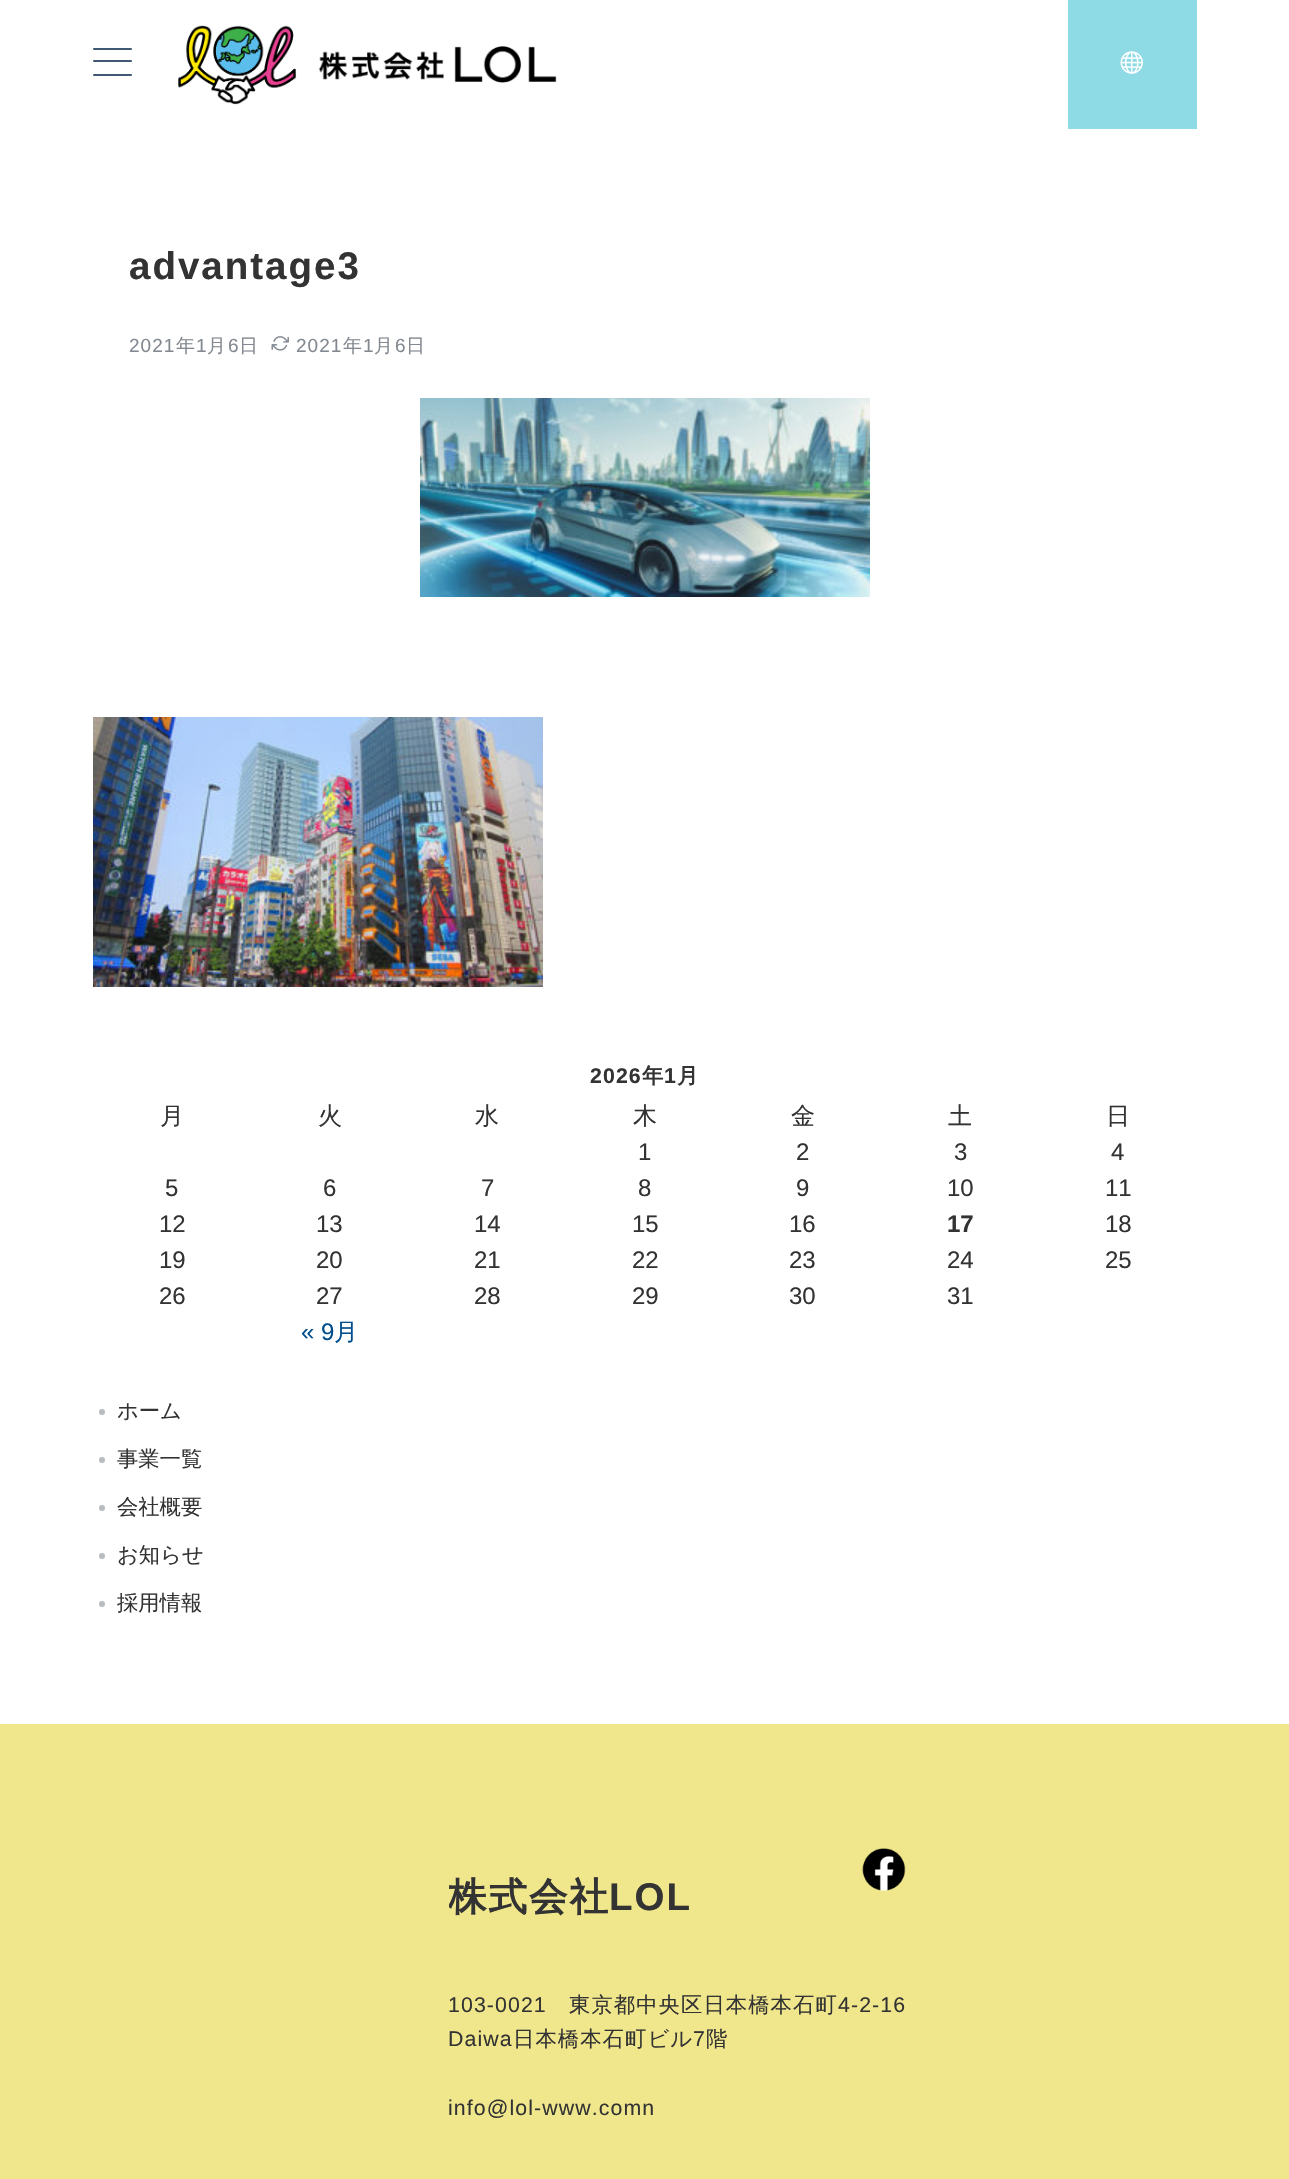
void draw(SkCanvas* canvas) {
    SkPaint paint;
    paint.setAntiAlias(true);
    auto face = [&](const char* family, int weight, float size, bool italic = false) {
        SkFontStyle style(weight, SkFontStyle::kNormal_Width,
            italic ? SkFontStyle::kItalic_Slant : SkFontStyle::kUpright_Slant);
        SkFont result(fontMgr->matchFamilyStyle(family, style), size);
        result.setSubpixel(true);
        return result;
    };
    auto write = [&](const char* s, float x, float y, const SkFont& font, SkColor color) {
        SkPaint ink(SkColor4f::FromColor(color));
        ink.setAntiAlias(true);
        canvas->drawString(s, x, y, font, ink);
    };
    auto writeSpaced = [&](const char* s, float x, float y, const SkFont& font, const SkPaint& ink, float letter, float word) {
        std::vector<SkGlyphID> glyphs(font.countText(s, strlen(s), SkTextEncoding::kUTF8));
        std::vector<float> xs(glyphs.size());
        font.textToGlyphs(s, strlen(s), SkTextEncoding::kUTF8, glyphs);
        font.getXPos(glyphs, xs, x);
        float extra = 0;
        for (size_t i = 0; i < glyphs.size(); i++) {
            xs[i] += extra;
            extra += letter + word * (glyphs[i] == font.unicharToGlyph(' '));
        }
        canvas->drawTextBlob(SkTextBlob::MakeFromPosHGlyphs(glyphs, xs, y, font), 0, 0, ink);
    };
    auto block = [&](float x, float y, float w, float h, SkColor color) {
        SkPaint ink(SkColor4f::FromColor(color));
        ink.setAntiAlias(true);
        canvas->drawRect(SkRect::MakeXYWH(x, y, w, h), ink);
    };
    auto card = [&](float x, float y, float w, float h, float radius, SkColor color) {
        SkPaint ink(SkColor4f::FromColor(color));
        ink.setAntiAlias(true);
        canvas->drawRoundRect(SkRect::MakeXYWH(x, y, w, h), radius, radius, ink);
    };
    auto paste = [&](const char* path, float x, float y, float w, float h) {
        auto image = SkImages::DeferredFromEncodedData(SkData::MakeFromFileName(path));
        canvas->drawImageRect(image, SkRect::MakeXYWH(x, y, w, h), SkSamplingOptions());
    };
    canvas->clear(SK_ColorWHITE);
    card(93, 48, 39, 2, 1, SkColorSetRGB(63, 89, 115));
    card(93, 60, 39, 2, 1, SkColorSetRGB(63, 89, 115));
    card(93, 74, 39, 2, 1, SkColorSetRGB(63, 89, 115));
    paste("pic1.png", 178, 25, 379, 80);
    block(1068, 0, 129, 129, SkColorSetRGB(142, 218, 229));
    paste("pic2.png", 1120, 51, 23, 23);
    auto kFont1 = face("Liberation Sans", 700, 38.5f);
    paint.setColor(SkColorSetRGB(51, 51, 51));
    writeSpaced("advantage3", 129, 279, kFont1, paint, 2, 0);
    auto kFont2 = face("Liberation Sans", 400, 19);
    paint.setColor(SkColorSetRGB(130, 137, 144));
    writeSpaced("2021", 129, 352, kFont2, paint, 1, 0);
    auto kFont3 = face("WenQuanYi Zen Hei", 500, 19);
    writeSpaced("年", 176, 352, kFont3, paint, 1, 0);
    writeSpaced("1", 196, 352, kFont2, paint, 1, 0);
    writeSpaced("月", 207, 352, kFont3, paint, 1, 0);
    writeSpaced("6", 228, 352, kFont2, paint, 1, 0);
    writeSpaced("日", 239, 352, kFont3, paint, 1, 0);
    paste("pic3.png", 271, 336, 18, 15);
    writeSpaced("2021", 296, 352, kFont2, paint, 1, 0);
    writeSpaced("年", 343, 352, kFont3, paint, 1, 0);
    writeSpaced("1", 363, 352, kFont2, paint, 1, 0);
    writeSpaced("月", 374, 352, kFont3, paint, 1, 0);
    writeSpaced("6", 395, 352, kFont2, paint, 1, 0);
    writeSpaced("日", 406, 352, kFont3, paint, 1, 0);
    paste("pic4.png", 420, 398, 450, 199);
    paste("pic5.png", 93, 717, 450, 270);
    auto kFont4 = face("Liberation Sans", 700, 21.3f);
    paint.setColor(SkColorSetRGB(51, 51, 51));
    writeSpaced("2026", 590, 1083, kFont4, paint, 1.1f, 0);
    auto kFont5 = face("WenQuanYi Zen Hei", 700, 21.3f);
    writeSpaced("年", 642, 1083, kFont5, paint, 1.1f, 0);
    writeSpaced("1", 664, 1083, kFont4, paint, 1.1f, 0);
    writeSpaced("月", 677, 1083, kFont5, paint, 1.1f, 0);
    auto kFont6 = face("WenQuanYi Zen Hei", 500, 24);
    write("月", 160, 1124, kFont6, SkColorSetRGB(51, 51, 51));
    write("火", 318, 1124, kFont6, SkColorSetRGB(51, 51, 51));
    write("水", 475, 1124, kFont6, SkColorSetRGB(51, 51, 51));
    write("木", 633, 1124, kFont6, SkColorSetRGB(51, 51, 51));
    write("金", 791, 1124, kFont6, SkColorSetRGB(51, 51, 51));
    write("土", 948, 1124, kFont6, SkColorSetRGB(51, 51, 51));
    write("日", 1106, 1124, kFont6, SkColorSetRGB(51, 51, 51));
    auto kFont7 = face("Liberation Sans", 400, 24);
    write("1", 638, 1160, kFont7, SkColorSetRGB(51, 51, 51));
    write("2", 796, 1160, kFont7, SkColorSetRGB(51, 51, 51));
    write("3", 954, 1160, kFont7, SkColorSetRGB(51, 51, 51));
    write("4", 1111, 1160, kFont7, SkColorSetRGB(51, 51, 51));
    write("5", 165, 1196, kFont7, SkColorSetRGB(51, 51, 51));
    write("6", 323, 1196, kFont7, SkColorSetRGB(51, 51, 51));
    write("7", 481, 1196, kFont7, SkColorSetRGB(51, 51, 51));
    write("8", 638, 1196, kFont7, SkColorSetRGB(51, 51, 51));
    write("9", 796, 1196, kFont7, SkColorSetRGB(51, 51, 51));
    write("10", 947, 1196, kFont7, SkColorSetRGB(51, 51, 51));
    write("11", 1105, 1196, kFont7, SkColorSetRGB(51, 51, 51));
    write("12", 159, 1232, kFont7, SkColorSetRGB(51, 51, 51));
    write("13", 316, 1232, kFont7, SkColorSetRGB(51, 51, 51));
    write("14", 474, 1232, kFont7, SkColorSetRGB(51, 51, 51));
    write("15", 632, 1232, kFont7, SkColorSetRGB(51, 51, 51));
    write("16", 789, 1232, kFont7, SkColorSetRGB(51, 51, 51));
    auto kFont8 = face("Liberation Sans", 700, 24);
    write("17", 947, 1232, kFont8, SkColorSetRGB(51, 51, 51));
    write("18", 1105, 1232, kFont7, SkColorSetRGB(51, 51, 51));
    write("19", 159, 1268, kFont7, SkColorSetRGB(51, 51, 51));
    write("20", 316, 1268, kFont7, SkColorSetRGB(51, 51, 51));
    write("21", 474, 1268, kFont7, SkColorSetRGB(51, 51, 51));
    write("22", 632, 1268, kFont7, SkColorSetRGB(51, 51, 51));
    write("23", 789, 1268, kFont7, SkColorSetRGB(51, 51, 51));
    write("24", 947, 1268, kFont7, SkColorSetRGB(51, 51, 51));
    write("25", 1105, 1268, kFont7, SkColorSetRGB(51, 51, 51));
    write("26", 159, 1304, kFont7, SkColorSetRGB(51, 51, 51));
    write("27", 316, 1304, kFont7, SkColorSetRGB(51, 51, 51));
    write("28", 474, 1304, kFont7, SkColorSetRGB(51, 51, 51));
    write("29", 632, 1304, kFont7, SkColorSetRGB(51, 51, 51));
    write("30", 789, 1304, kFont7, SkColorSetRGB(51, 51, 51));
    write("31", 947, 1304, kFont7, SkColorSetRGB(51, 51, 51));
    write("« 9", 301, 1340, kFont7, SkColorSetRGB(0, 78, 142));
    write("月", 334, 1340, kFont6, SkColorSetRGB(0, 78, 142));
    paint.setColor(SkColorSetRGB(184, 188, 192));
    canvas->drawCircle(102, 1412, 3, paint);
    auto kFont9 = face("WenQuanYi Zen Hei", 500, 21.3f);
    write("ホーム", 117, 1418, kFont9, SkColorSetRGB(51, 51, 51));
    canvas->drawCircle(102, 1460, 3, paint);
    write("事業一覧", 117, 1466, kFont9, SkColorSetRGB(51, 51, 51));
    canvas->drawCircle(102, 1508, 3, paint);
    write("会社概要", 117, 1514, kFont9, SkColorSetRGB(51, 51, 51));
    canvas->drawCircle(102, 1556, 3, paint);
    write("お知らせ", 117, 1562, kFont9, SkColorSetRGB(51, 51, 51));
    canvas->drawCircle(102, 1604, 3, paint);
    write("採用情報", 117, 1610, kFont9, SkColorSetRGB(51, 51, 51));
    block(0, 1724, 1289, 455, SkColorSetRGB(240, 230, 140));
    paste("pic6.png", 862, 1848, 44, 43);
    canvas->save();
    canvas->clipPath(SkPathBuilder().moveTo(454, 1868).lineTo(1216, 1868).cubicTo(1219, 1868, 1221, 1870, 1221, 1873).lineTo(1221, 2121).cubicTo(1221, 2124, 1219, 2126, 1216, 2126).lineTo(454, 2126).cubicTo(451, 2126, 449, 2124, 449, 2121).lineTo(449, 1873).cubicTo(449, 1870, 451, 1868, 454, 1868).close().detach(), true);
    auto kFont10 = face("WenQuanYi Zen Hei", 700, 38.5f);
    paint.setColor(SkColorSetRGB(51, 51, 51));
    writeSpaced("株式会社", 448, 1910, kFont10, paint, 2, 0);
    canvas->restore();
    writeSpaced("LOL", 609, 1910, kFont1, paint, 2, 0);
    auto kFont11 = face("Liberation Sans", 400, 21.3f);
    writeSpaced("103-0021", 448, 2012, kFont11, paint, 1.1f, 0);
    writeSpaced("東京都中央区日本橋本石町", 569, 2012, kFont9, paint, 1.1f, 0);
    writeSpaced("4-2-16", 838, 2012, kFont11, paint, 1.1f, 0);
    writeSpaced("Daiwa", 448, 2046, kFont11, paint, 1.1f, 0);
    writeSpaced("日本橋本石町ビル", 513, 2046, kFont9, paint, 1.1f, 0);
    writeSpaced("7", 693, 2046, kFont11, paint, 1.1f, 0);
    writeSpaced("階", 706, 2046, kFont9, paint, 1.1f, 0);
    writeSpaced("info@lol-www.comn", 448, 2115, kFont11, paint, 1.1f, 0);
}
